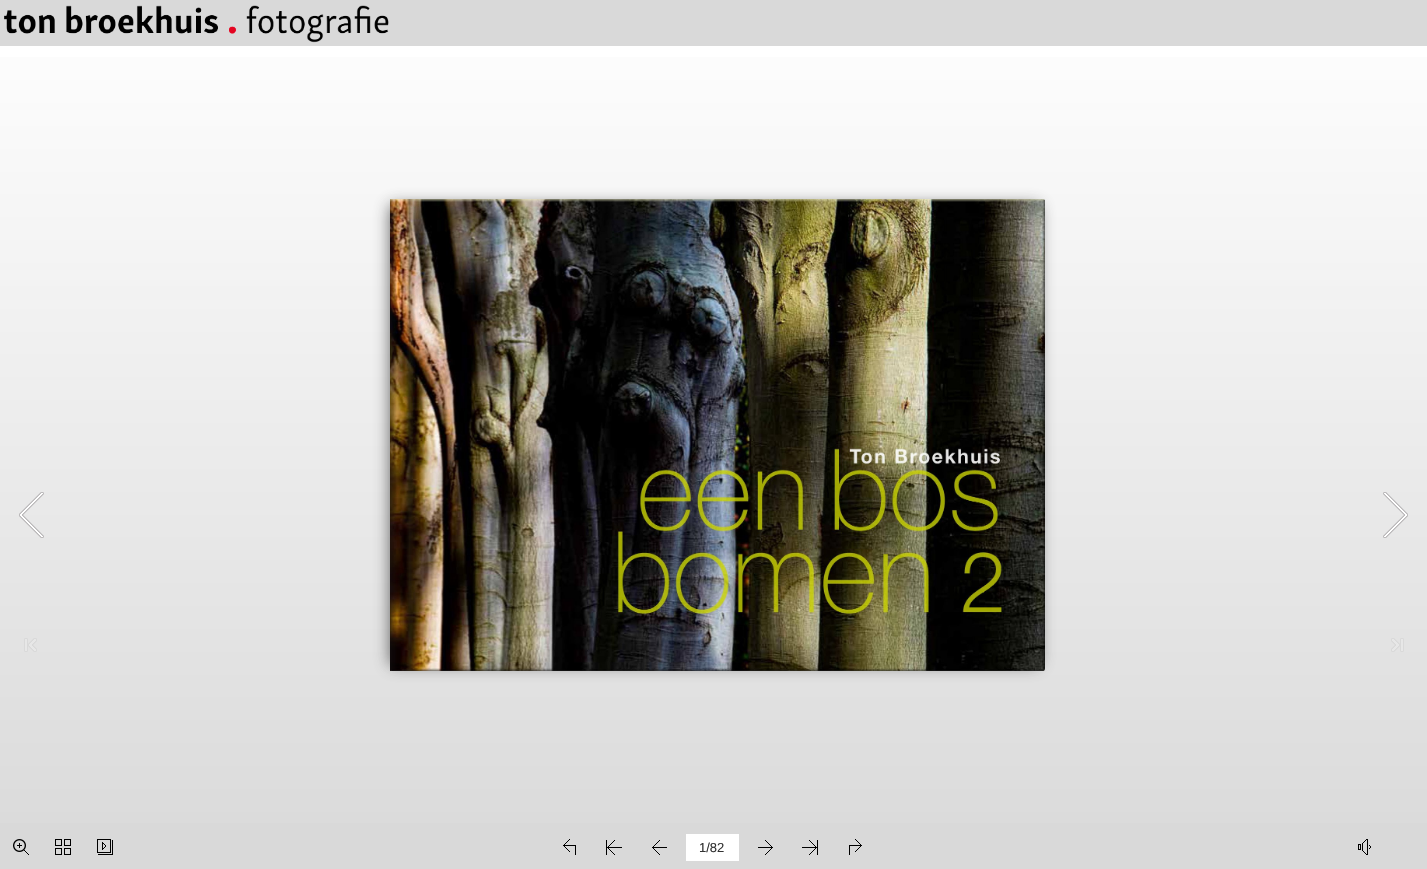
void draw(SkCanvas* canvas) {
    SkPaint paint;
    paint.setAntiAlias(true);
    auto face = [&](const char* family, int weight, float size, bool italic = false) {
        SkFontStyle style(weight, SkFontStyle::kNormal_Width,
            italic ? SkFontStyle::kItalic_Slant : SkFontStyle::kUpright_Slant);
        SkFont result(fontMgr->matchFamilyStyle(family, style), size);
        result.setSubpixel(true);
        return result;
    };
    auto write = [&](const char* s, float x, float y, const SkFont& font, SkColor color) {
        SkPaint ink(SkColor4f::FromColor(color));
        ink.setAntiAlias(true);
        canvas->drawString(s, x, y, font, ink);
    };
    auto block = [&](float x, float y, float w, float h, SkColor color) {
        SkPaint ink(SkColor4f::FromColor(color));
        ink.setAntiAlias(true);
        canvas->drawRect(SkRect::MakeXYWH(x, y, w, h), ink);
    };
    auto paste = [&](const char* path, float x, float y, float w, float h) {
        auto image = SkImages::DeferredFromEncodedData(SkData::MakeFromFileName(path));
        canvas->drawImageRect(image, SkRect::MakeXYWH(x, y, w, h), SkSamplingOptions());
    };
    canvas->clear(SK_ColorWHITE);
    block(0, 0, 1427, 46, SkColorSetRGB(217, 217, 217));
    paste("pic1.png", 4, 5, 385, 38);
    {
        const SkColor colors[] = {SK_ColorWHITE, SkColorSetRGB(217, 217, 217)};
        const float stops[] = {0, 1};
        const SkPoint ends[] = {{714, 0}, {714, 869}};
        paint.setShader(SkGradientShader::MakeLinear(ends, colors, stops, 2, SkTileMode::kClamp));
        paint.setAlpha(255);
    }
    canvas->drawRect(SkRect::MakeXYWH(0, 57, 1427, 766), paint);
    paste("pic2.png", 19, 492, 25, 46);
    paint.setShader(nullptr);
    paint.setColor(SkColorSetARGB(179, 40, 40, 40));
    paint.setMaskFilter(SkMaskFilter::MakeBlur(kNormal_SkBlurStyle, 7.5f));
    canvas->drawRect(SkRect::MakeXYWH(390, 205, 649, 460), paint);
    paint.setMaskFilter(nullptr);
    paste("pic3.png", 390, 199, 655, 472);
    {
        const SkColor colors[] = {SkColorSetARGB(128, 20, 20, 20), SkColorSetARGB(0, 20, 20, 20)};
        const float stops[] = {0, 1};
        const SkPoint ends[] = {{390, 435}, {397, 435}};
        paint.setShader(SkGradientShader::MakeLinear(ends, colors, stops, 2, SkTileMode::kClamp));
        paint.setAlpha(255);
    }
    canvas->drawRect(SkRect::MakeXYWH(390, 199, 7, 472), paint);
    {
        const SkColor colors[] = {SkColorSetARGB(153, 240, 240, 200), SkColorSetARGB(0, 240, 240, 200)};
        const float stops[] = {0, 1};
        const SkPoint ends[] = {{718, 199}, {718, 202}};
        paint.setShader(SkGradientShader::MakeLinear(ends, colors, stops, 2, SkTileMode::kClamp));
        paint.setAlpha(255);
    }
    canvas->drawPath(SkPathBuilder().moveTo(390, 199).lineTo(1043, 199).cubicTo(1044, 199, 1045, 200, 1045, 201).lineTo(1045, 202).lineTo(390, 202).close().detach(), paint);
    {
        const SkColor colors[] = {SkColorSetARGB(128, 0, 0, 0), SkColorSetARGB(0, 0, 0, 0)};
        const float stops[] = {0, 1};
        const SkPoint ends[] = {{718, 671}, {718, 668}};
        paint.setShader(SkGradientShader::MakeLinear(ends, colors, stops, 2, SkTileMode::kClamp));
        paint.setAlpha(255);
    }
    canvas->drawRect(SkRect::MakeXYWH(392, 668, 652, 3), paint);
    {
        const SkColor colors[] = {SkColorSetARGB(0, 40, 40, 20), SkColorSetARGB(102, 40, 40, 20), SkColorSetARGB(0, 40, 40, 20)};
        const float stops[] = {0, 0.35f, 1};
        const SkPoint ends[] = {{406, 435}, {416, 435}};
        paint.setShader(SkGradientShader::MakeLinear(ends, colors, stops, 3, SkTileMode::kClamp));
        paint.setAlpha(255);
    }
    canvas->drawRect(SkRect::MakeXYWH(406, 199, 10, 472), paint);
    {
        const SkColor colors[] = {SkColorSetARGB(128, 0, 0, 0), SkColorSetARGB(0, 0, 0, 0)};
        const float stops[] = {0, 1};
        const SkPoint ends[] = {{1045, 435}, {1042, 435}};
        paint.setShader(SkGradientShader::MakeLinear(ends, colors, stops, 2, SkTileMode::kClamp));
        paint.setAlpha(255);
    }
    canvas->drawRect(SkRect::MakeXYWH(1042, 200, 3, 469), paint);
    paste("pic4.png", 1383, 492, 25, 46);
    paste("pic5.png", 24, 638, 13, 14);
    paste("pic6.png", 1391, 638, 13, 14);
    block(0, 823, 1427, 46, SkColorSetRGB(217, 217, 217));
    paste("pic7.png", 13, 839, 16, 16);
    paste("pic8.png", 55, 839, 16, 16);
    paste("pic9.png", 97, 839, 16, 16);
    paste("pic10.png", 563, 839, 13, 16);
    paste("pic11.png", 606, 840, 16, 15);
    paste("pic12.png", 652, 840, 15, 15);
    block(686, 834, 53, 27, SK_ColorWHITE);
    auto kFont1 = face("Liberation Sans", 400, 13);
    write("1/82", 699, 852, kFont1, SkColorSetRGB(51, 51, 51));
    paste("pic13.png", 758, 840, 15, 15);
    paste("pic14.png", 802, 840, 16, 15);
    paste("pic15.png", 849, 839, 13, 16);
    paste("pic16.png", 1358, 839, 13, 16);
}
